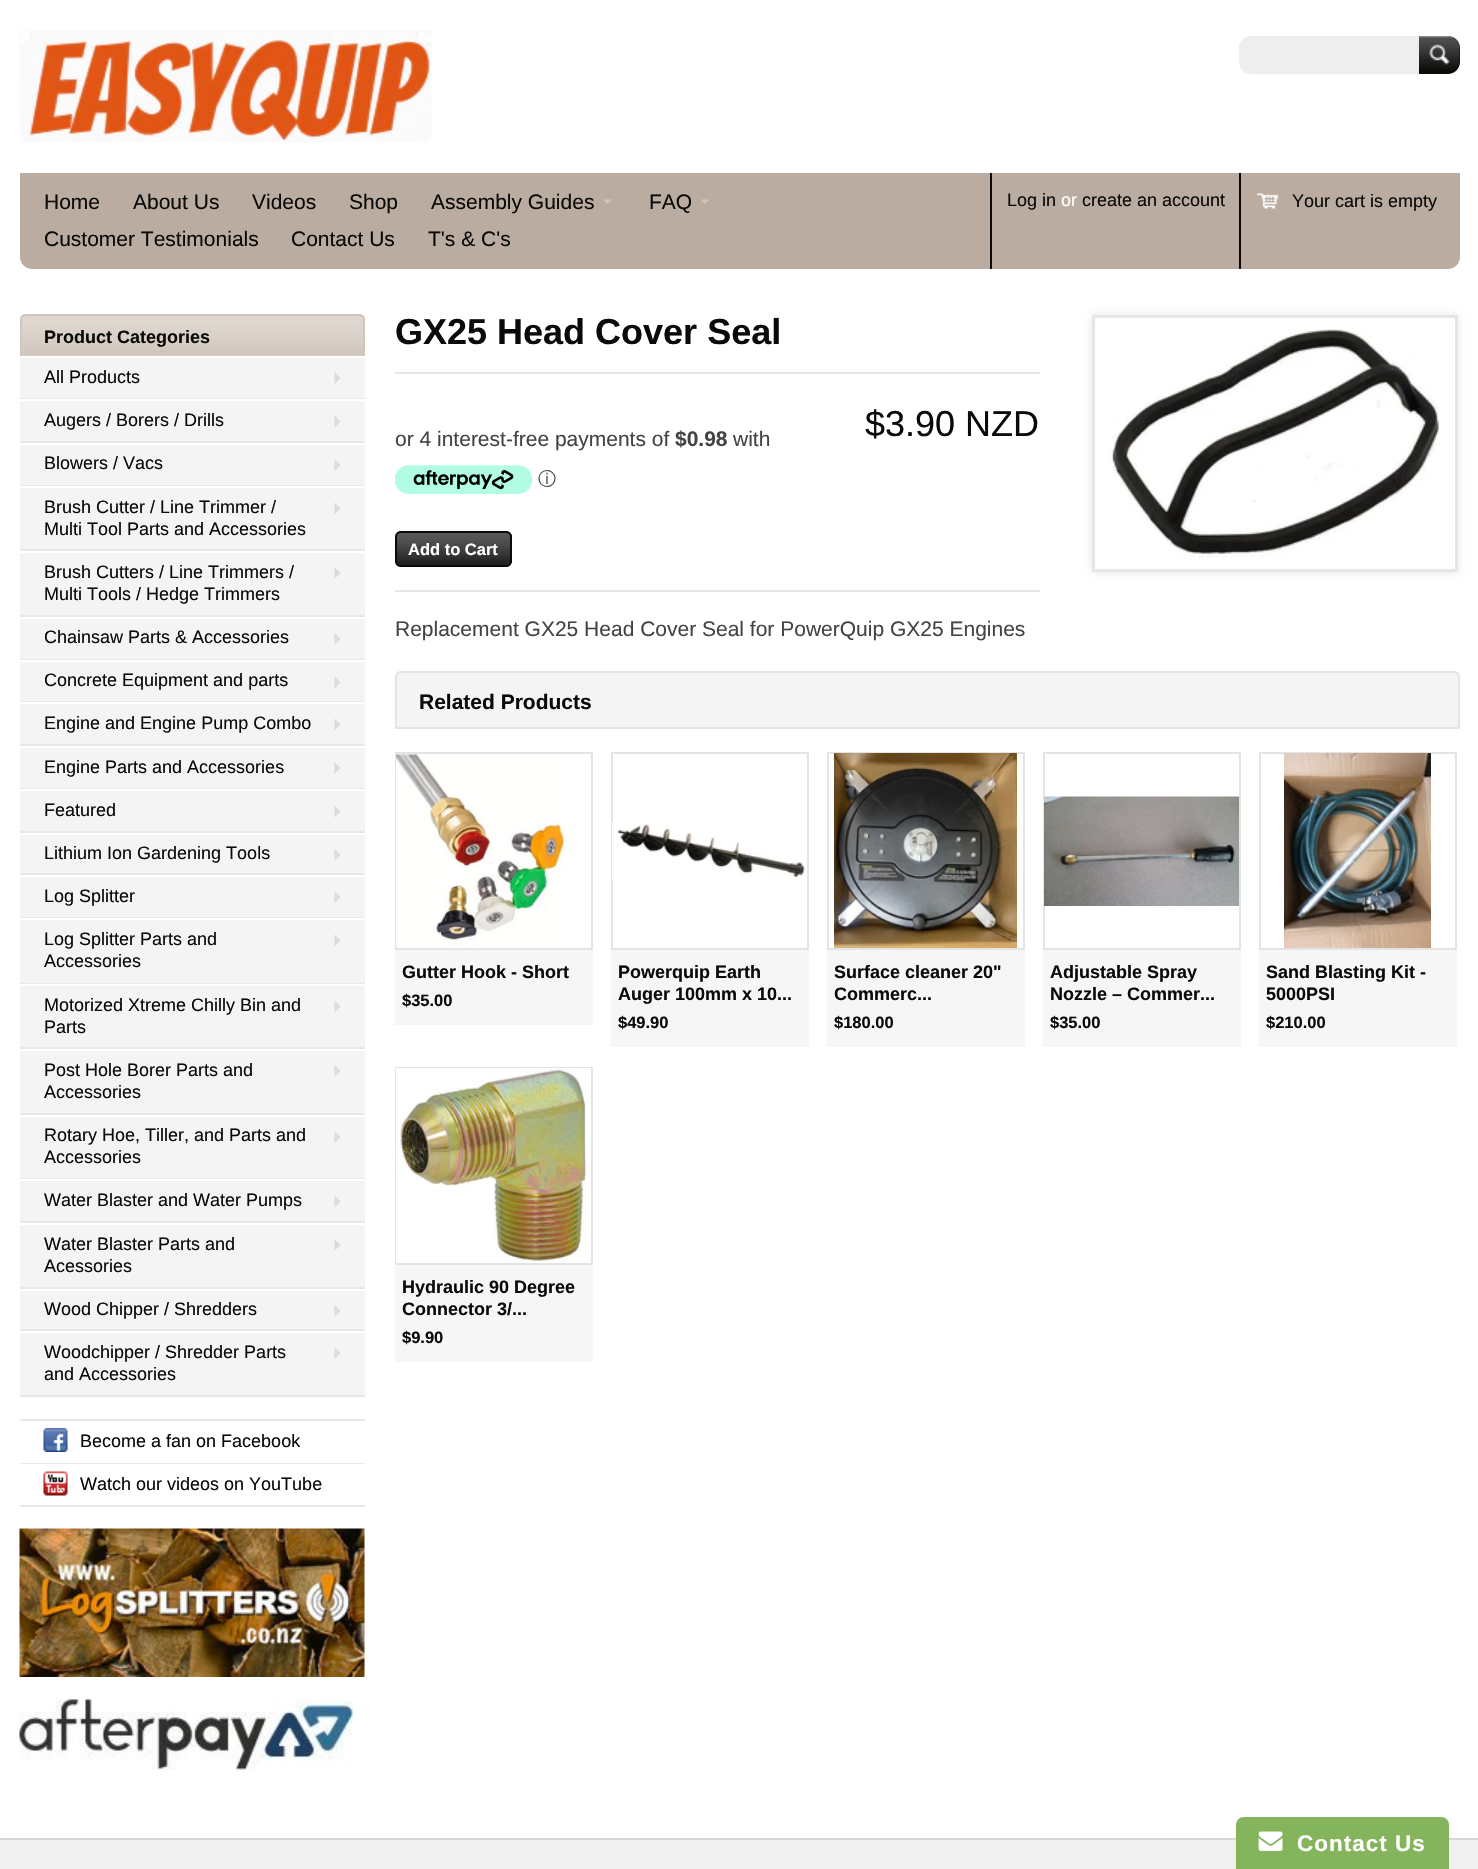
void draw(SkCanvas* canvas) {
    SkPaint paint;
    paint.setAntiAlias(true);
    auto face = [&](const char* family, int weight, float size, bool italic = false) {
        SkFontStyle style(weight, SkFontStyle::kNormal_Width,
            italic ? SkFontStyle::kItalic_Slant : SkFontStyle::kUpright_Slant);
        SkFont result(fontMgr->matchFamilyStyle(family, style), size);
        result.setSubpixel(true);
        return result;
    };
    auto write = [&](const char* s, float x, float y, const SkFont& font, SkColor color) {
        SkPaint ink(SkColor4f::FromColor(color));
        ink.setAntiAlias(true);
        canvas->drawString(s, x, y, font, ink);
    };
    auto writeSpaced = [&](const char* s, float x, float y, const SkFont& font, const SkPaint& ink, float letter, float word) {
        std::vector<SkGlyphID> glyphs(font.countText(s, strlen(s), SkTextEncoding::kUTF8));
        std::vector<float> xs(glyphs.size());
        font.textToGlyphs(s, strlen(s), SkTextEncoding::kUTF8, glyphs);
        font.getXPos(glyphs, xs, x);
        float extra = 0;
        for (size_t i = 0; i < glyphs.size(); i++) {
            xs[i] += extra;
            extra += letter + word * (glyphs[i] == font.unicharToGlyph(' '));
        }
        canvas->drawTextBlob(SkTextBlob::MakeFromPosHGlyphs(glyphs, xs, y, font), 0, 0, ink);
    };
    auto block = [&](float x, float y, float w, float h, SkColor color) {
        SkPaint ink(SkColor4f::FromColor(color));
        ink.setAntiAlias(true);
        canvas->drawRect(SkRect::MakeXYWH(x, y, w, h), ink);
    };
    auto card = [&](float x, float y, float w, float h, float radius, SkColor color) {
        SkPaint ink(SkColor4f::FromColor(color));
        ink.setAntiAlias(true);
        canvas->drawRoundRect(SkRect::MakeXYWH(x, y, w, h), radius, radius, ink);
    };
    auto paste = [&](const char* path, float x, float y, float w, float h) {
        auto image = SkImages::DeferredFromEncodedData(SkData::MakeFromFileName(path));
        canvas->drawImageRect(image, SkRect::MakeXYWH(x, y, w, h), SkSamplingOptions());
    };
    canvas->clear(SkColorSetRGB(240, 240, 240));
    block(0, 0, 1478, 1838, SK_ColorWHITE);
    paste("pic1.png", 19, 30, 413, 113);
    paint.setColor(SkColorSetRGB(238, 238, 238));
    canvas->drawPath(SkPathBuilder().moveTo(1251, 36).lineTo(1419, 36).lineTo(1419, 74).lineTo(1251, 74).cubicTo(1244.5f, 74, 1239, 68.5f, 1239, 62).lineTo(1239, 48).cubicTo(1239, 41.5f, 1244.5f, 36, 1251, 36).close().detach(), paint);
    paint.setColor(SkColorSetRGB(10, 10, 9));
    canvas->drawPath(SkPathBuilder().moveTo(1419, 36).lineTo(1448, 36).cubicTo(1454.5f, 36, 1460, 41.5f, 1460, 48).lineTo(1460, 62).cubicTo(1460, 68.5f, 1454.5f, 74, 1448, 74).lineTo(1419, 74).close().detach(), paint);
    paste("pic2.png", 1419, 36, 41, 34);
    paint.setColor(SkColorSetRGB(186, 172, 160));
    canvas->drawPath(SkPathBuilder().moveTo(20, 173).lineTo(1460, 173).lineTo(1460, 257).cubicTo(1460, 263.5f, 1454.5f, 269, 1448, 269).lineTo(32, 269).cubicTo(25.5f, 269, 20, 263.5f, 20, 257).close().detach(), paint);
    auto kFont1 = face("Liberation Sans", 400, 21);
    write("Home", 44, 209, kFont1, SkColorSetRGB(10, 10, 9));
    write("About Us", 133, 209, kFont1, SkColorSetRGB(10, 10, 9));
    write("Videos", 252, 209, kFont1, SkColorSetRGB(10, 10, 9));
    write("Shop", 349, 209, kFont1, SkColorSetRGB(10, 10, 9));
    write("Assembly Guides", 431, 209, kFont1, SkColorSetRGB(10, 10, 9));
    paint.setColor(SkColorSetRGB(209, 198, 188));
    canvas->drawPath(SkPathBuilder().moveTo(603, 199.5f).lineTo(612, 199.5f).lineTo(607.5f, 204).close().detach(), paint);
    write("FAQ", 649, 209, kFont1, SkColorSetRGB(10, 10, 9));
    canvas->drawPath(SkPathBuilder().moveTo(700.5f, 199.5f).lineTo(709.5f, 199.5f).lineTo(705, 204).close().detach(), paint);
    write("Customer Testimonials", 44, 246, kFont1, SkColorSetRGB(10, 10, 9));
    write("Contact Us", 291, 246, kFont1, SkColorSetRGB(10, 10, 9));
    write("T's & C's", 428, 246, kFont1, SkColorSetRGB(10, 10, 9));
    block(990, 173, 2, 96, SkColorSetRGB(10, 10, 9));
    auto kFont2 = face("Liberation Sans", 400, 18);
    write("Log in", 1007, 206, kFont2, SkColorSetRGB(10, 10, 9));
    write("or", 1061, 206, kFont2, SK_ColorWHITE);
    write("create an account", 1082, 206, kFont2, SkColorSetRGB(10, 10, 9));
    block(1239, 173, 2, 96, SkColorSetRGB(10, 10, 9));
    paste("pic3.png", 1256, 193, 23, 16);
    write("Your cart is empty", 1292, 207, kFont2, SkColorSetRGB(10, 10, 9));
    canvas->drawPath(SkPathBuilder().moveTo(26, 314).lineTo(359, 314).cubicTo(362.5f, 314, 365, 316.5f, 365, 320).lineTo(365, 356).lineTo(20, 356).lineTo(20, 320).cubicTo(20, 316.5f, 22.5f, 314, 26, 314).close().detach(), paint);
    paste("pic4.png", 20, 315, 345, 35);
    paint.setStyle(SkPaint::kStroke_Style);
    paint.setStrokeWidth(2);
    canvas->drawPath(SkPathBuilder().moveTo(26, 315).lineTo(359, 315).cubicTo(362, 315, 364, 317, 364, 320).lineTo(364, 355).lineTo(21, 355).lineTo(21, 320).cubicTo(21, 317, 23, 315, 26, 315).close().detach(), paint);
    auto kFont3 = face("Liberation Sans", 700, 18);
    write("Product Categories", 44, 343, kFont3, SkColorSetRGB(10, 10, 9));
    block(20, 358, 345, 40, SkColorSetRGB(244, 244, 244));
    block(20, 398, 345, 1, SkColorSetRGB(232, 232, 232));
    write("All Products", 44, 383, kFont2, SkColorSetRGB(10, 10, 9));
    paint.setStyle(SkPaint::kFill_Style);
    paint.setColor(SkColorSetRGB(219, 219, 219));
    canvas->drawPath(SkPathBuilder().moveTo(334.5f, 384).lineTo(334.5f, 372).lineTo(340.5f, 378).close().detach(), paint);
    block(20, 401, 345, 40, SkColorSetRGB(244, 244, 244));
    block(20, 441, 345, 2, SkColorSetRGB(232, 232, 232));
    write("Augers / Borers / Drills", 44, 426, kFont2, SkColorSetRGB(10, 10, 9));
    canvas->drawPath(SkPathBuilder().moveTo(334.5f, 427.5f).lineTo(334.5f, 415.5f).lineTo(340.5f, 421.5f).close().detach(), paint);
    block(20, 445, 345, 40, SkColorSetRGB(244, 244, 244));
    block(20, 485, 345, 1, SkColorSetRGB(232, 232, 232));
    write("Blowers / Vacs", 44, 469, kFont2, SkColorSetRGB(10, 10, 9));
    canvas->drawPath(SkPathBuilder().moveTo(334.5f, 471).lineTo(334.5f, 459).lineTo(340.5f, 465).close().detach(), paint);
    block(20, 488, 345, 61, SkColorSetRGB(244, 244, 244));
    block(20, 549, 345, 2, SkColorSetRGB(232, 232, 232));
    write("Brush Cutter / Line Trimmer /", 44, 513, kFont2, SkColorSetRGB(10, 10, 9));
    canvas->drawPath(SkPathBuilder().moveTo(334.5f, 514.5f).lineTo(334.5f, 502.5f).lineTo(340.5f, 508.5f).close().detach(), paint);
    write("Multi Tool Parts and Accessories", 44, 535, kFont2, SkColorSetRGB(10, 10, 9));
    block(20, 553, 345, 62, SkColorSetRGB(244, 244, 244));
    block(20, 615, 345, 2, SkColorSetRGB(232, 232, 232));
    write("Brush Cutters / Line Trimmers /", 44, 578, kFont2, SkColorSetRGB(10, 10, 9));
    canvas->drawPath(SkPathBuilder().moveTo(334.5f, 579).lineTo(334.5f, 567).lineTo(340.5f, 573).close().detach(), paint);
    write("Multi Tools / Hedge Trimmers", 44, 600, kFont2, SkColorSetRGB(10, 10, 9));
    block(20, 619, 345, 40, SkColorSetRGB(244, 244, 244));
    block(20, 659, 345, 1, SkColorSetRGB(232, 232, 232));
    write("Chainsaw Parts & Accessories", 44, 643, kFont2, SkColorSetRGB(10, 10, 9));
    canvas->drawPath(SkPathBuilder().moveTo(334.5f, 645).lineTo(334.5f, 633).lineTo(340.5f, 639).close().detach(), paint);
    block(20, 662, 345, 39, SkColorSetRGB(244, 244, 244));
    block(20, 701, 345, 1, SkColorSetRGB(232, 232, 232));
    write("Concrete Equipment and parts", 44, 686, kFont2, SkColorSetRGB(10, 10, 9));
    canvas->drawPath(SkPathBuilder().moveTo(334.5f, 688.5f).lineTo(334.5f, 676.5f).lineTo(340.5f, 682.5f).close().detach(), paint);
    block(20, 704, 345, 40, SkColorSetRGB(244, 244, 244));
    block(20, 744, 345, 2, SkColorSetRGB(232, 232, 232));
    write("Engine and Engine Pump Combo", 44, 729, kFont2, SkColorSetRGB(10, 10, 9));
    canvas->drawPath(SkPathBuilder().moveTo(334.5f, 730.5f).lineTo(334.5f, 718.5f).lineTo(340.5f, 724.5f).close().detach(), paint);
    block(20, 748, 345, 40, SkColorSetRGB(244, 244, 244));
    block(20, 788, 345, 1, SkColorSetRGB(232, 232, 232));
    write("Engine Parts and Accessories", 44, 773, kFont2, SkColorSetRGB(10, 10, 9));
    canvas->drawPath(SkPathBuilder().moveTo(334.5f, 774).lineTo(334.5f, 762).lineTo(340.5f, 768).close().detach(), paint);
    block(20, 791, 345, 40, SkColorSetRGB(244, 244, 244));
    block(20, 831, 345, 2, SkColorSetRGB(232, 232, 232));
    write("Featured", 44, 816, kFont2, SkColorSetRGB(10, 10, 9));
    canvas->drawPath(SkPathBuilder().moveTo(334.5f, 817.5f).lineTo(334.5f, 805.5f).lineTo(340.5f, 811.5f).close().detach(), paint);
    block(20, 835, 345, 38, SkColorSetRGB(244, 244, 244));
    block(20, 873, 345, 2, SkColorSetRGB(232, 232, 232));
    write("Lithium Ion Gardening Tools", 44, 859, kFont2, SkColorSetRGB(10, 10, 9));
    canvas->drawPath(SkPathBuilder().moveTo(334.5f, 861).lineTo(334.5f, 849).lineTo(340.5f, 855).close().detach(), paint);
    block(20, 877, 345, 40, SkColorSetRGB(244, 244, 244));
    block(20, 917, 345, 1, SkColorSetRGB(232, 232, 232));
    write("Log Splitter", 44, 902, kFont2, SkColorSetRGB(10, 10, 9));
    canvas->drawPath(SkPathBuilder().moveTo(334.5f, 903).lineTo(334.5f, 891).lineTo(340.5f, 897).close().detach(), paint);
    block(20, 920, 345, 63, SkColorSetRGB(244, 244, 244));
    block(20, 983, 345, 1, SkColorSetRGB(232, 232, 232));
    write("Log Splitter Parts and", 44, 945, kFont2, SkColorSetRGB(10, 10, 9));
    canvas->drawPath(SkPathBuilder().moveTo(334.5f, 946.5f).lineTo(334.5f, 934.5f).lineTo(340.5f, 940.5f).close().detach(), paint);
    write("Accessories", 44, 967, kFont2, SkColorSetRGB(10, 10, 9));
    block(20, 986, 345, 61, SkColorSetRGB(244, 244, 244));
    block(20, 1047, 345, 2, SkColorSetRGB(232, 232, 232));
    write("Motorized Xtreme Chilly Bin and", 44, 1011, kFont2, SkColorSetRGB(10, 10, 9));
    canvas->drawPath(SkPathBuilder().moveTo(334.5f, 1012.5f).lineTo(334.5f, 1000.5f).lineTo(340.5f, 1006.5f).close().detach(), paint);
    write("Parts", 44, 1033, kFont2, SkColorSetRGB(10, 10, 9));
    block(20, 1051, 345, 62, SkColorSetRGB(244, 244, 244));
    block(20, 1113, 345, 2, SkColorSetRGB(232, 232, 232));
    write("Post Hole Borer Parts and", 44, 1076, kFont2, SkColorSetRGB(10, 10, 9));
    canvas->drawPath(SkPathBuilder().moveTo(334.5f, 1077).lineTo(334.5f, 1065).lineTo(340.5f, 1071).close().detach(), paint);
    write("Accessories", 44, 1098, kFont2, SkColorSetRGB(10, 10, 9));
    block(20, 1117, 345, 61, SkColorSetRGB(244, 244, 244));
    block(20, 1178, 345, 1, SkColorSetRGB(232, 232, 232));
    write("Rotary Hoe, Tiller, and Parts and", 44, 1141, kFont2, SkColorSetRGB(10, 10, 9));
    canvas->drawPath(SkPathBuilder().moveTo(334.5f, 1143).lineTo(334.5f, 1131).lineTo(340.5f, 1137).close().detach(), paint);
    write("Accessories", 44, 1163, kFont2, SkColorSetRGB(10, 10, 9));
    block(20, 1181, 345, 40, SkColorSetRGB(244, 244, 244));
    block(20, 1221, 345, 2, SkColorSetRGB(232, 232, 232));
    write("Water Blaster and Water Pumps", 44, 1206, kFont2, SkColorSetRGB(10, 10, 9));
    canvas->drawPath(SkPathBuilder().moveTo(334.5f, 1207.5f).lineTo(334.5f, 1195.5f).lineTo(340.5f, 1201.5f).close().detach(), paint);
    block(20, 1225, 345, 62, SkColorSetRGB(244, 244, 244));
    block(20, 1287, 345, 2, SkColorSetRGB(232, 232, 232));
    write("Water Blaster Parts and", 44, 1250, kFont2, SkColorSetRGB(10, 10, 9));
    canvas->drawPath(SkPathBuilder().moveTo(334.5f, 1251).lineTo(334.5f, 1239).lineTo(340.5f, 1245).close().detach(), paint);
    write("Acessories", 44, 1272, kFont2, SkColorSetRGB(10, 10, 9));
    block(20, 1291, 345, 38, SkColorSetRGB(244, 244, 244));
    block(20, 1329, 345, 2, SkColorSetRGB(232, 232, 232));
    write("Wood Chipper / Shredders", 44, 1315, kFont2, SkColorSetRGB(10, 10, 9));
    canvas->drawPath(SkPathBuilder().moveTo(334.5f, 1317).lineTo(334.5f, 1305).lineTo(340.5f, 1311).close().detach(), paint);
    block(20, 1333, 345, 62, SkColorSetRGB(244, 244, 244));
    block(20, 1395, 345, 2, SkColorSetRGB(232, 232, 232));
    write("Woodchipper / Shredder Parts", 44, 1358, kFont2, SkColorSetRGB(10, 10, 9));
    canvas->drawPath(SkPathBuilder().moveTo(334.5f, 1359).lineTo(334.5f, 1347).lineTo(340.5f, 1353).close().detach(), paint);
    write("and Accessories", 44, 1380, kFont2, SkColorSetRGB(10, 10, 9));
    block(20, 1419, 345, 2, SkColorSetRGB(232, 232, 232));
    paste("pic5.png", 43, 1428, 25, 24);
    block(20, 1463, 345, 1, SkColorSetRGB(232, 232, 232));
    write("Become a fan on Facebook", 80, 1447, kFont2, SkColorSetRGB(10, 10, 9));
    paste("pic6.png", 43, 1471, 25, 25);
    block(20, 1505, 345, 2, SkColorSetRGB(232, 232, 232));
    write("Watch our videos on YouTube", 80, 1490, kFont2, SkColorSetRGB(10, 10, 9));
    paste("pic7.png", 19, 1528, 346, 149);
    paste("pic8.png", 19, 1699, 334, 71);
    block(395, 372, 645, 2, SkColorSetRGB(230, 230, 230));
    auto kFont4 = face("Liberation Sans", 700, 36);
    write("GX25 Head Cover Seal", 395, 344, kFont4, SkColorSetRGB(10, 10, 9));
    block(395, 590, 645, 2, SkColorSetRGB(230, 230, 230));
    auto kFont5 = face("Liberation Sans", 400, 36);
    write("$3.90 NZD", 865, 436, kFont5, SkColorSetRGB(10, 10, 9));
    write("or 4 interest-free payments of", 395, 446, kFont1, SkColorSetRGB(68, 68, 68));
    auto kFont6 = face("Liberation Sans", 700, 21);
    write("$0.98", 675, 446, kFont6, SkColorSetRGB(68, 68, 68));
    write("with", 733, 446, kFont1, SkColorSetRGB(68, 68, 68));
    paste("pic9.png", 395, 465, 138, 29);
    auto kFont7 = face("WenQuanYi Zen Hei", 500, 18);
    write("ⓘ", 538, 485, kFont7, SkColorSetRGB(68, 68, 68));
    card(395, 531, 117, 36, 6, SkColorSetRGB(10, 10, 9));
    paste("pic10.png", 395, 532, 117, 35);
    paint.setStyle(SkPaint::kStroke_Style);
    paint.setColor(SkColorSetRGB(10, 10, 9));
    canvas->drawRoundRect(SkRect::MakeXYWH(396, 532, 115, 34), 5, 5, paint);
    auto kFont8 = face("Liberation Sans", 700, 16.5f);
    write("Add to Cart", 408, 555, kFont8, SK_ColorWHITE);
    write("Replacement GX25 Head Cover Seal for PowerQuip GX25 Engines", 395, 636, kFont1, SkColorSetRGB(68, 68, 68));
    canvas->save();
    canvas->clipPath(SkPathBuilder(SkPathFillType::kEvenOdd).moveTo(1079, 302).lineTo(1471, 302).lineTo(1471, 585).lineTo(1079, 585).close().moveTo(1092, 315).lineTo(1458, 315).lineTo(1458, 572).lineTo(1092, 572).close().detach(), true);
    paint.setStyle(SkPaint::kFill_Style);
    paint.setColor(SkColorSetARGB(26, 0, 0, 0));
    paint.setMaskFilter(SkMaskFilter::MakeBlur(kNormal_SkBlurStyle, 4));
    canvas->drawRect(SkRect::MakeXYWH(1092, 315, 366, 257), paint);
    paint.setMaskFilter(nullptr);
    canvas->restore();
    paint.setStyle(SkPaint::kStroke_Style);
    paint.setStrokeWidth(3);
    paint.setColor(SkColorSetRGB(230, 230, 230));
    canvas->drawRect(SkRect::MakeXYWH(1093.5f, 316.5f, 363, 254), paint);
    paste("pic11.png", 1109, 329, 332, 229);
    paint.setStyle(SkPaint::kFill_Style);
    paint.setColor(SkColorSetRGB(244, 244, 244));
    canvas->drawPath(SkPathBuilder().moveTo(401, 672).lineTo(1454, 672).cubicTo(1457, 672, 1459, 674, 1459, 677).lineTo(1459, 728).lineTo(396, 728).lineTo(396, 677).cubicTo(396, 674, 398, 672, 401, 672).close().detach(), paint);
    paint.setStyle(SkPaint::kStroke_Style);
    paint.setStrokeWidth(2);
    paint.setColor(SkColorSetRGB(228, 228, 228));
    canvas->drawPath(SkPathBuilder().moveTo(401, 672).lineTo(1454, 672).cubicTo(1457, 672, 1459, 674, 1459, 677).lineTo(1459, 728).lineTo(396, 728).lineTo(396, 677).cubicTo(396, 674, 398, 672, 401, 672).close().detach(), paint);
    write("Related Products", 419, 709, kFont6, SkColorSetRGB(10, 10, 9));
    canvas->drawRect(SkRect::MakeXYWH(396, 753, 196, 196), paint);
    paste("pic12.png", 396, 754, 176, 193);
    block(395, 950, 198, 75, SkColorSetRGB(246, 246, 246));
    write("Gutter Hook - Short", 402, 978, kFont3, SkColorSetRGB(10, 10, 9));
    write("$35.00", 402, 1006, kFont8, SkColorSetRGB(10, 10, 9));
    canvas->drawRect(SkRect::MakeXYWH(612, 753, 196, 196), paint);
    paste("pic13.png", 612, 822, 195, 59);
    block(611, 950, 198, 97, SkColorSetRGB(246, 246, 246));
    write("Powerquip Earth", 618, 978, kFont3, SkColorSetRGB(10, 10, 9));
    write("Auger 100mm x 10...", 618, 1000, kFont3, SkColorSetRGB(10, 10, 9));
    write("$49.90", 618, 1028, kFont8, SkColorSetRGB(10, 10, 9));
    canvas->drawRect(SkRect::MakeXYWH(828, 753, 196, 196), paint);
    paste("pic14.png", 834, 753, 183, 195);
    block(827, 950, 198, 97, SkColorSetRGB(246, 246, 246));
    write("Surface cleaner 20\"", 834, 978, kFont3, SkColorSetRGB(10, 10, 9));
    write("Commerc...", 834, 1000, kFont3, SkColorSetRGB(10, 10, 9));
    write("$180.00", 834, 1028, kFont8, SkColorSetRGB(10, 10, 9));
    canvas->drawRect(SkRect::MakeXYWH(1044, 753, 196, 196), paint);
    paste("pic15.png", 1044, 796, 195, 110);
    block(1043, 950, 198, 97, SkColorSetRGB(246, 246, 246));
    write("Adjustable Spray", 1050, 978, kFont3, SkColorSetRGB(10, 10, 9));
    write("Nozzle – Commer...", 1050, 1000, kFont3, SkColorSetRGB(10, 10, 9));
    write("$35.00", 1050, 1028, kFont8, SkColorSetRGB(10, 10, 9));
    canvas->drawRect(SkRect::MakeXYWH(1260, 753, 196, 196), paint);
    paste("pic16.png", 1284, 753, 147, 195);
    block(1259, 950, 198, 97, SkColorSetRGB(246, 246, 246));
    write("Sand Blasting Kit -", 1266, 978, kFont3, SkColorSetRGB(10, 10, 9));
    write("5000PSI", 1266, 1000, kFont3, SkColorSetRGB(10, 10, 9));
    write("$210.00", 1266, 1028, kFont8, SkColorSetRGB(10, 10, 9));
    canvas->drawRect(SkRect::MakeXYWH(396, 1068, 196, 196), paint);
    paste("pic17.png", 396, 1068, 195, 195);
    block(395, 1265, 198, 97, SkColorSetRGB(246, 246, 246));
    write("Hydraulic 90 Degree", 402, 1293, kFont3, SkColorSetRGB(10, 10, 9));
    write("Connector 3/...", 402, 1315, kFont3, SkColorSetRGB(10, 10, 9));
    write("$9.90", 402, 1343, kFont8, SkColorSetRGB(10, 10, 9));
    block(0, 1838, 1478, 2, SkColorSetRGB(215, 215, 215));
    paint.setStyle(SkPaint::kFill_Style);
    paint.setColor(SkColorSetRGB(132, 180, 91));
    canvas->drawPath(SkPathBuilder().moveTo(1244, 1817).lineTo(1441, 1817).cubicTo(1445.5f, 1817, 1449, 1820.5f, 1449, 1825).lineTo(1449, 1869).lineTo(1236, 1869).lineTo(1236, 1825).cubicTo(1236, 1820.5f, 1239.5f, 1817, 1244, 1817).close().detach(), paint);
    paste("pic18.png", 1258, 1831, 25, 20);
    auto kFont9 = face("Liberation Sans", 700, 22.5f);
    paint.setColor(SK_ColorWHITE);
    writeSpaced("Contact Us", 1297, 1851, kFont9, paint, 1, 0);
}
